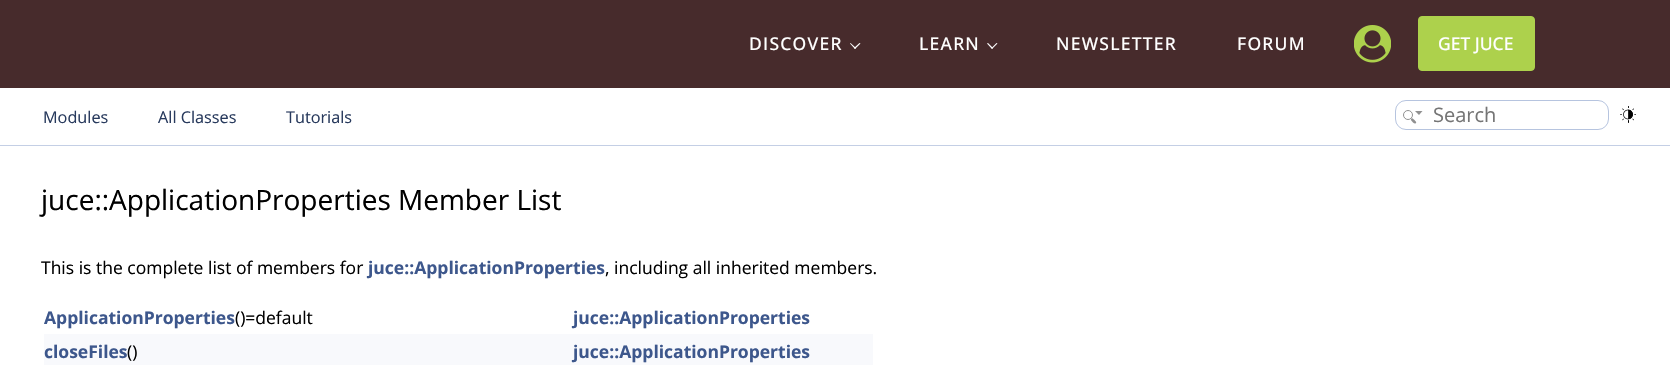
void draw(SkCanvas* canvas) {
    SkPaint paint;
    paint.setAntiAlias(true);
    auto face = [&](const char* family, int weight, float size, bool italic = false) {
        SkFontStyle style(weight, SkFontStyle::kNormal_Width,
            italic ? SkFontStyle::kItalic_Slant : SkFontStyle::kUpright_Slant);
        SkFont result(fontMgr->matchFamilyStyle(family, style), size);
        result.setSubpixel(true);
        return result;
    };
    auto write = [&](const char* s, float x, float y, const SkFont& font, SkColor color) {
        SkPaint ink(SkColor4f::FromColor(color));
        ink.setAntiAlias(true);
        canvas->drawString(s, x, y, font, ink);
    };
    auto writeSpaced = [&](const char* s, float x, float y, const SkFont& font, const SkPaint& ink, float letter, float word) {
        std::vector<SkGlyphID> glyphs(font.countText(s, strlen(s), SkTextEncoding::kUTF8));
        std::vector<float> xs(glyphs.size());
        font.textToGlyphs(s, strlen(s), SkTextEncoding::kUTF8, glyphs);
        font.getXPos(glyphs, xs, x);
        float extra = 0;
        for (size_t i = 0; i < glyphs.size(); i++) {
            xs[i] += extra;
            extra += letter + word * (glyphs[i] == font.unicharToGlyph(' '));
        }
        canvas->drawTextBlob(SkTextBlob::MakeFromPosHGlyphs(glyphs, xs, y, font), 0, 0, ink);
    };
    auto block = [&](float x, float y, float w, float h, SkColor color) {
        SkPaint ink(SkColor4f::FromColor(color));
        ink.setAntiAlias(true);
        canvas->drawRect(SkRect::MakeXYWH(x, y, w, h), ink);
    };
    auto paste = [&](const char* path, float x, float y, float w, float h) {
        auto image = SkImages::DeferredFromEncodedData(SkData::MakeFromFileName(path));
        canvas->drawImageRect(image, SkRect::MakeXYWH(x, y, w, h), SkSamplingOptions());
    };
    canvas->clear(SK_ColorWHITE);
    block(0, 0, 1670, 88, SkColorSetRGB(71, 43, 44));
    auto kFont1 = face("Open Sans", 500, 17.5f);
    paint.setColor(SK_ColorWHITE);
    writeSpaced("DISCOVER", 749, 50, kFont1, paint, 1.25f, 0);
    canvas->drawPath(SkPathBuilder().moveTo(860.5f, 43.5f).lineTo(855, 49).lineTo(854, 48).lineTo(859.5f, 43).close().detach(), paint);
    canvas->drawPath(SkPathBuilder().moveTo(856, 48).lineTo(855, 49).lineTo(850, 43.5f).lineTo(850.5f, 43).close().detach(), paint);
    writeSpaced("LEARN", 919, 50, kFont1, paint, 1.25f, 0);
    canvas->drawPath(SkPathBuilder().moveTo(997.5f, 43.5f).lineTo(992, 49).lineTo(991.5f, 48).lineTo(996.5f, 43).close().detach(), paint);
    canvas->drawPath(SkPathBuilder().moveTo(993, 48).lineTo(992, 49).lineTo(987, 43.5f).lineTo(988, 43).close().detach(), paint);
    writeSpaced("NEWSLETTER", 1056, 50, kFont1, paint, 1.25f, 0);
    writeSpaced("FORUM", 1237, 50, kFont1, paint, 1.25f, 0);
    paste("pic1.png", 1354, 25, 37, 38);
    paint.setColor(SkColorSetRGB(173, 209, 76));
    canvas->drawRoundRect(SkRect::MakeXYWH(1418.5f, 16.5f, 116, 54), 3.5f, 3.5f, paint);
    paint.setStyle(SkPaint::kStroke_Style);
    paint.setStrokeWidth(1);
    canvas->drawRoundRect(SkRect::MakeXYWH(1418.5f, 16.5f, 116, 54), 3.5f, 3.5f, paint);
    write("GET JUCE", 1438, 50, kFont1, SK_ColorWHITE);
    block(0, 145, 1670, 1, SkColorSetRGB(196, 207, 229));
    auto kFont2 = face("Open Sans", 400, 16.25f);
    write("Modules", 43, 123, kFont2, SkColorSetRGB(40, 58, 93));
    write("All Classes", 158, 123, kFont2, SkColorSetRGB(40, 58, 93));
    write("Tutorials", 286, 123, kFont2, SkColorSetRGB(40, 58, 93));
    paint.setColor(SkColorSetRGB(182, 196, 223));
    canvas->drawRoundRect(SkRect::MakeXYWH(1395.5f, 100.5f, 213, 29), 10.5f, 10.5f, paint);
    paint.setColor(SkColorSetRGB(144, 144, 144));
    canvas->drawCircle(1408, 115, 4.5f, paint);
    paint.setStyle(SkPaint::kFill_Style);
    canvas->drawPath(SkPathBuilder().moveTo(1415, 111).lineTo(1422.5f, 111).lineTo(1419, 115).close().moveTo(1411.5f, 118.5f).cubicTo(1412.5f, 117.5f, 1413.5f, 119.5f, 1414.5f, 120).cubicTo(1415, 121, 1417, 122, 1416, 123).cubicTo(1414.5f, 124.5f, 1413.5f, 122.5f, 1412.5f, 122).cubicTo(1412, 121, 1410, 120, 1411.5f, 118.5f).close().detach(), paint);
    auto kFont3 = face("Open Sans", 400, 20);
    write("Search", 1433, 122, kFont3, SkColorSetRGB(117, 117, 117));
    paste("pic2.png", 1620, 106, 16, 17);
    auto kFont4 = face("Open Sans", 400, 28);
    write("juce::ApplicationProperties Member List", 41, 210, kFont4, SK_ColorBLACK);
    auto kFont5 = face("Open Sans", 400, 17.5f);
    write("This is the complete list of members for", 41, 274, kFont5, SK_ColorBLACK);
    auto kFont6 = face("Open Sans", 700, 17.5f);
    write("juce::ApplicationProperties", 368, 274, kFont6, SkColorSetRGB(61, 87, 140));
    write(", including all inherited members.", 605, 274, kFont5, SK_ColorBLACK);
    write("ApplicationProperties", 44, 324, kFont6, SkColorSetRGB(61, 87, 140));
    write("()=default", 235, 324, kFont5, SK_ColorBLACK);
    write("juce::ApplicationProperties", 573, 324, kFont6, SkColorSetRGB(61, 87, 140));
    block(44, 334, 829, 31, SkColorSetRGB(248, 249, 252));
    write("closeFiles", 44, 358, kFont6, SkColorSetRGB(61, 87, 140));
    write("()", 127, 358, kFont5, SK_ColorBLACK);
    write("juce::ApplicationProperties", 573, 358, kFont6, SkColorSetRGB(61, 87, 140));
}
